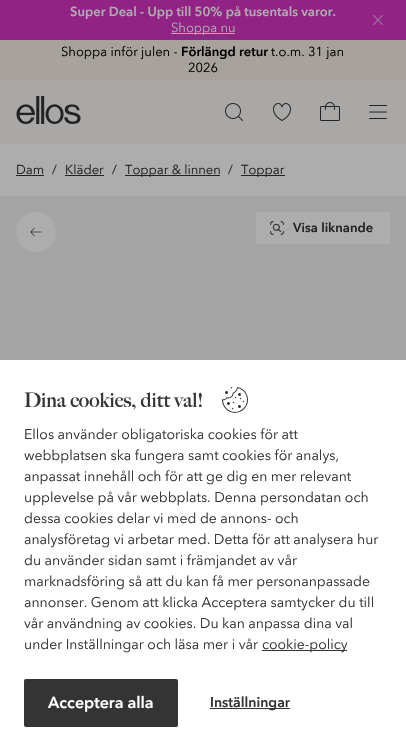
void draw(SkCanvas* canvas) {
    SkPaint paint;
    paint.setAntiAlias(true);
    auto face = [&](const char* family, int weight, float size, bool italic = false) {
        SkFontStyle style(weight, SkFontStyle::kNormal_Width,
            italic ? SkFontStyle::kItalic_Slant : SkFontStyle::kUpright_Slant);
        SkFont result(fontMgr->matchFamilyStyle(family, style), size);
        result.setSubpixel(true);
        return result;
    };
    auto write = [&](const char* s, float x, float y, const SkFont& font, SkColor color) {
        SkPaint ink(SkColor4f::FromColor(color));
        ink.setAntiAlias(true);
        canvas->drawString(s, x, y, font, ink);
    };
    auto block = [&](float x, float y, float w, float h, SkColor color) {
        SkPaint ink(SkColor4f::FromColor(color));
        ink.setAntiAlias(true);
        canvas->drawRect(SkRect::MakeXYWH(x, y, w, h), ink);
    };
    auto card = [&](float x, float y, float w, float h, float radius, SkColor color) {
        SkPaint ink(SkColor4f::FromColor(color));
        ink.setAntiAlias(true);
        canvas->drawRoundRect(SkRect::MakeXYWH(x, y, w, h), radius, radius, ink);
    };
    auto paste = [&](const char* path, float x, float y, float w, float h) {
        auto image = SkImages::DeferredFromEncodedData(SkData::MakeFromFileName(path));
        canvas->drawImageRect(image, SkRect::MakeXYWH(x, y, w, h), SkSamplingOptions());
    };
    canvas->clear(SkColorSetRGB(173, 173, 173));
    block(0, 0, 406, 40, SkColorSetRGB(145, 35, 133));
    auto kFont1 = face("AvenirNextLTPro", 700, 13);
    write("Super Deal - Upp till 50% på tusentals varor.", 70, 16, kFont1, SkColorSetRGB(173, 173, 173));
    block(171, 33, 64, 1, SkColorSetRGB(173, 173, 173));
    auto kFont2 = face("AvenirNextLTPro", 400, 13);
    write("Shoppa nu", 171, 32, kFont2, SkColorSetRGB(173, 173, 173));
    paste("pic1.png", 373, 15, 10, 10);
    block(0, 40, 406, 40, SkColorSetRGB(167, 163, 156));
    write("Shoppa inför julen -", 61, 56, kFont2, SK_ColorBLACK);
    write("Förlängd retur", 181, 56, kFont1, SK_ColorBLACK);
    write("t.o.m. 31 jan", 271, 56, kFont2, SK_ColorBLACK);
    write("2026", 188, 72, kFont2, SK_ColorBLACK);
    block(0, 80, 406, 64, SkColorSetRGB(170, 168, 166));
    paste("pic2.png", 16, 96, 65, 28);
    paste("pic3.png", 225, 103, 18, 18);
    paste("pic4.png", 273, 103, 18, 18);
    paste("pic5.png", 320, 102, 20, 19);
    paste("pic6.png", 369, 105, 18, 14);
    write("Dam", 16, 174, kFont2, SkColorSetRGB(35, 35, 35));
    block(16, 175, 28, 1, SkColorSetRGB(35, 35, 35));
    write("/", 52, 174, kFont2, SkColorSetRGB(35, 35, 35));
    write("Kläder", 65, 174, kFont2, SkColorSetRGB(35, 35, 35));
    block(65, 175, 39, 1, SkColorSetRGB(35, 35, 35));
    write("/", 112, 174, kFont2, SkColorSetRGB(35, 35, 35));
    block(125, 175, 95, 1, SkColorSetRGB(35, 35, 35));
    write("Toppar & linnen", 125, 174, kFont2, SkColorSetRGB(35, 35, 35));
    write("/", 228, 174, kFont2, SkColorSetRGB(35, 35, 35));
    block(241, 175, 44, 1, SkColorSetRGB(35, 35, 35));
    write("Toppar", 241, 174, kFont2, SkColorSetRGB(35, 35, 35));
    block(0, 196, 406, 164, SkColorSetRGB(165, 165, 165));
    paint.setColor(SkColorSetRGB(173, 173, 173));
    canvas->drawCircle(36, 232, 19.5f, paint);
    paint.setStyle(SkPaint::kStroke_Style);
    paint.setStrokeWidth(1);
    canvas->drawCircle(36, 232, 19.5f, paint);
    paste("pic7.png", 30, 227, 12, 10);
    paint.setStyle(SkPaint::kFill_Style);
    canvas->drawRoundRect(SkRect::MakeXYWH(256.5f, 212.5f, 133, 31), 1.5f, 1.5f, paint);
    paint.setStyle(SkPaint::kStroke_Style);
    canvas->drawRoundRect(SkRect::MakeXYWH(256.5f, 212.5f, 133, 31), 1.5f, 1.5f, paint);
    paste("pic8.png", 270, 221, 14, 14);
    write("Visa liknande", 293, 232, kFont1, SkColorSetRGB(35, 35, 35));
    block(0, 360, 406, 391, SK_ColorWHITE);
    auto kFont3 = face("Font", 700, 20);
    write("Dina cookies, ditt val!", 24, 407, kFont3, SkColorSetRGB(52, 52, 52));
    paste("pic9.png", 222, 387, 26, 26);
    auto kFont4 = face("AvenirNextLTPro", 400, 14);
    write("Ellos använder obligatoriska cookies för att", 24, 439, kFont4, SkColorSetRGB(52, 52, 52));
    write("webbplatsen ska fungera samt cookies för analys,", 24, 460, kFont4, SkColorSetRGB(52, 52, 52));
    write("anpassat innehåll och för att ge dig en mer relevant", 24, 481, kFont4, SkColorSetRGB(52, 52, 52));
    write("upplevelse på vår webbplats. Denna persondatan och", 24, 502, kFont4, SkColorSetRGB(52, 52, 52));
    write("dessa cookies delar vi med de annons- och", 24, 523, kFont4, SkColorSetRGB(52, 52, 52));
    write("analysföretag vi arbetar med. Detta för att analysera hur", 24, 544, kFont4, SkColorSetRGB(52, 52, 52));
    write("du använder sidan samt i främjandet av vår", 24, 565, kFont4, SkColorSetRGB(52, 52, 52));
    write("marknadsföring så att du kan få mer personanpassade", 24, 586, kFont4, SkColorSetRGB(52, 52, 52));
    write("annonser. Genom att klicka Acceptera samtycker du till", 24, 607, kFont4, SkColorSetRGB(52, 52, 52));
    write("vår användning av cookies. Du kan anpassa dina val", 24, 628, kFont4, SkColorSetRGB(52, 52, 52));
    write("under Inställningar och läsa mer i vår", 24, 649, kFont4, SkColorSetRGB(52, 52, 52));
    block(262, 650, 85, 1, SkColorSetRGB(52, 52, 52));
    write("cookie-policy", 262, 649, kFont4, SkColorSetRGB(52, 52, 52));
    card(24, 679, 154, 48, 2, SkColorSetRGB(52, 52, 52));
    auto kFont5 = face("AvenirNextLTPro", 700, 16);
    write("Acceptera alla", 48, 708, kFont5, SK_ColorWHITE);
    block(210, 708, 80, 1, SkColorSetRGB(52, 52, 52));
    auto kFont6 = face("AvenirNextLTPro", 700, 14);
    write("Inställningar", 210, 707, kFont6, SkColorSetRGB(52, 52, 52));
}
